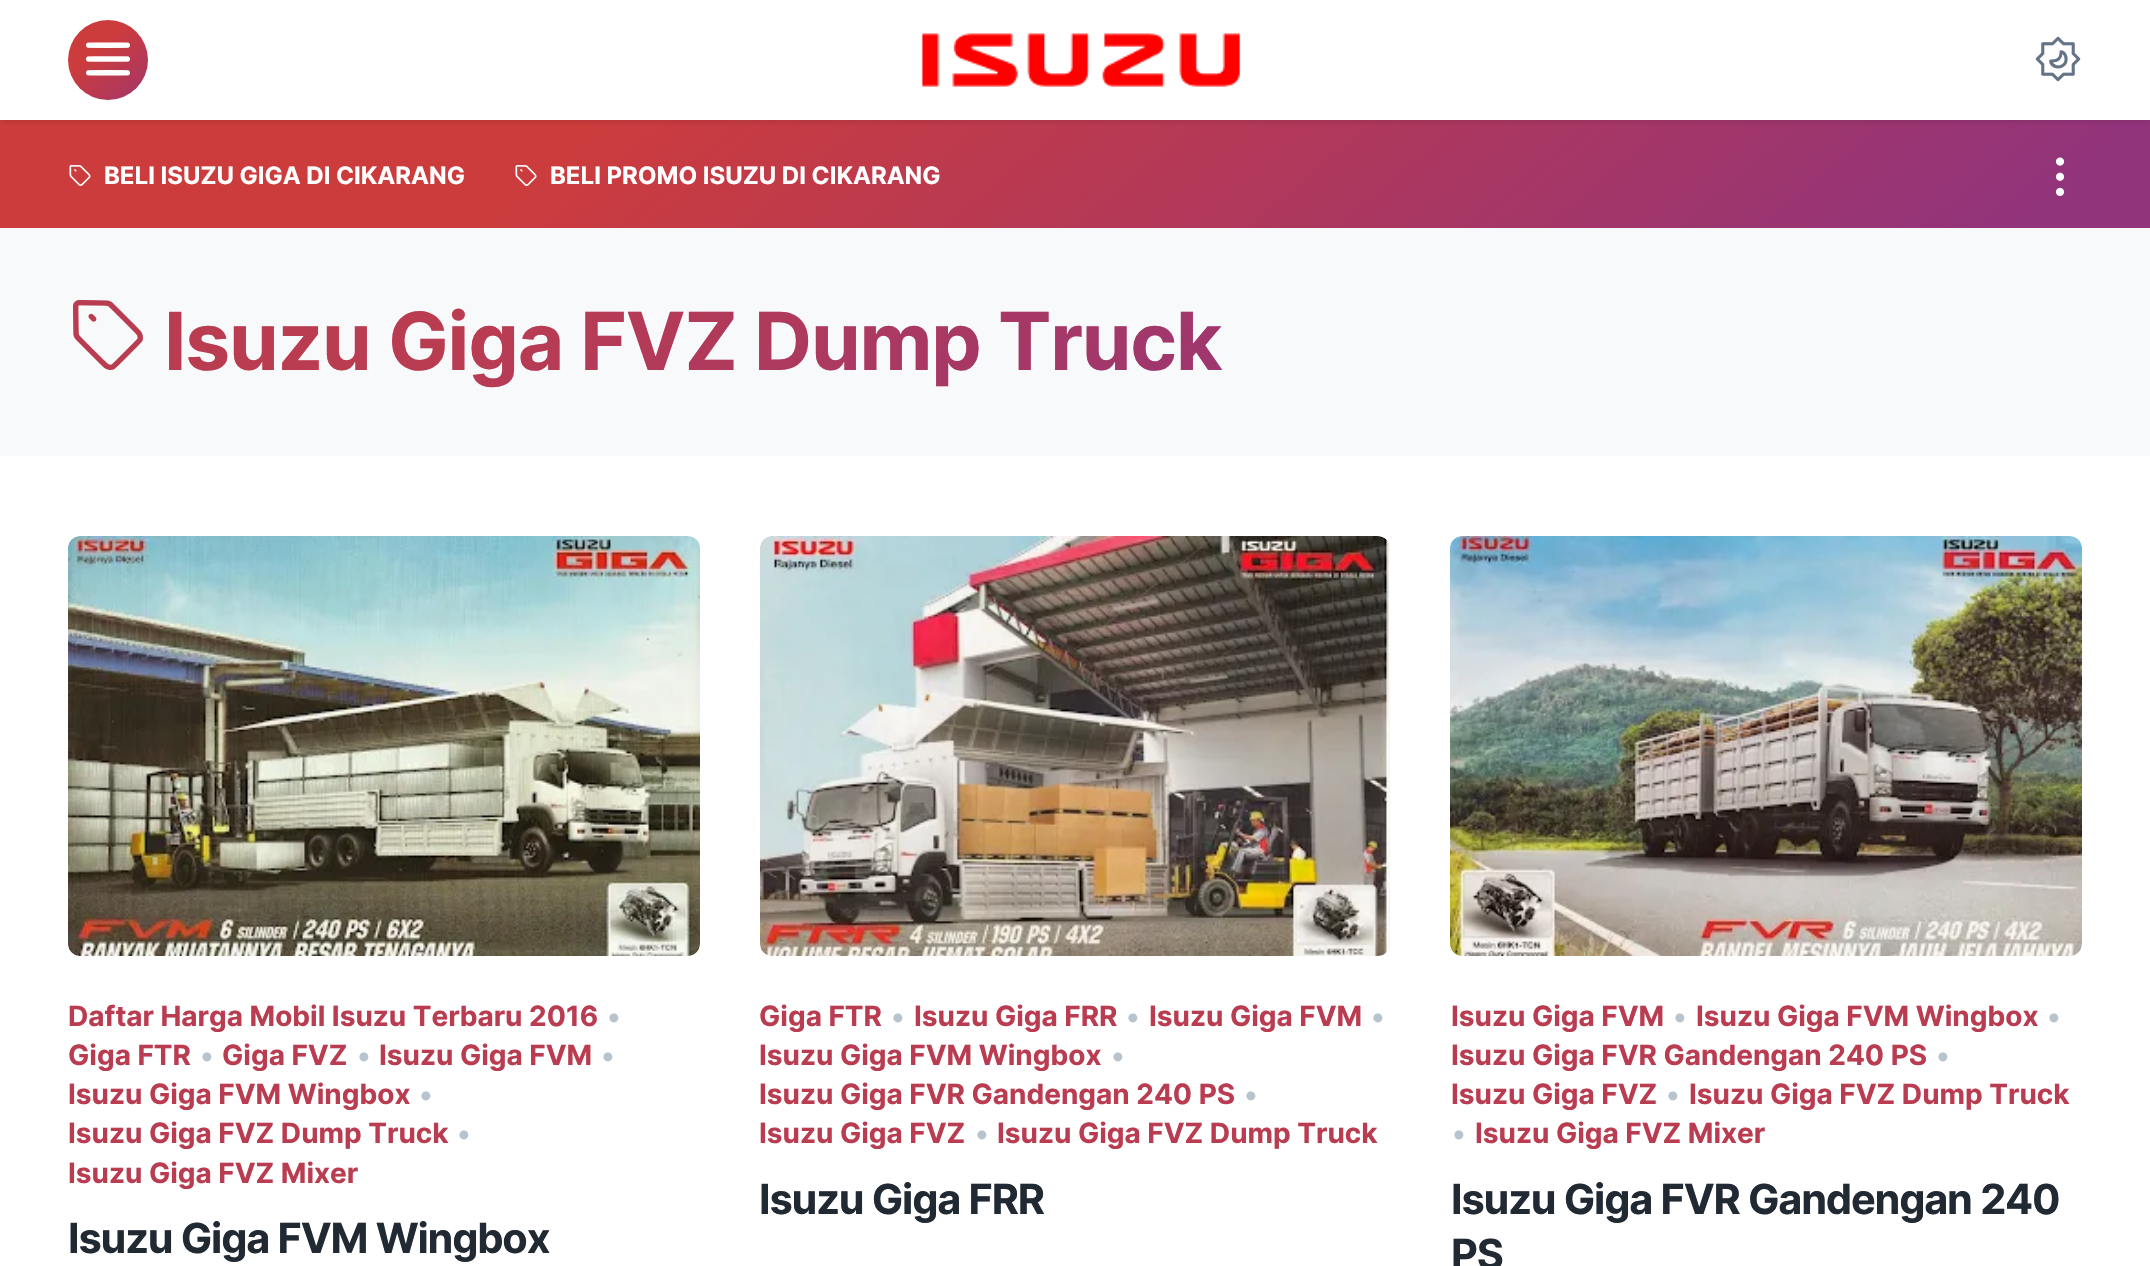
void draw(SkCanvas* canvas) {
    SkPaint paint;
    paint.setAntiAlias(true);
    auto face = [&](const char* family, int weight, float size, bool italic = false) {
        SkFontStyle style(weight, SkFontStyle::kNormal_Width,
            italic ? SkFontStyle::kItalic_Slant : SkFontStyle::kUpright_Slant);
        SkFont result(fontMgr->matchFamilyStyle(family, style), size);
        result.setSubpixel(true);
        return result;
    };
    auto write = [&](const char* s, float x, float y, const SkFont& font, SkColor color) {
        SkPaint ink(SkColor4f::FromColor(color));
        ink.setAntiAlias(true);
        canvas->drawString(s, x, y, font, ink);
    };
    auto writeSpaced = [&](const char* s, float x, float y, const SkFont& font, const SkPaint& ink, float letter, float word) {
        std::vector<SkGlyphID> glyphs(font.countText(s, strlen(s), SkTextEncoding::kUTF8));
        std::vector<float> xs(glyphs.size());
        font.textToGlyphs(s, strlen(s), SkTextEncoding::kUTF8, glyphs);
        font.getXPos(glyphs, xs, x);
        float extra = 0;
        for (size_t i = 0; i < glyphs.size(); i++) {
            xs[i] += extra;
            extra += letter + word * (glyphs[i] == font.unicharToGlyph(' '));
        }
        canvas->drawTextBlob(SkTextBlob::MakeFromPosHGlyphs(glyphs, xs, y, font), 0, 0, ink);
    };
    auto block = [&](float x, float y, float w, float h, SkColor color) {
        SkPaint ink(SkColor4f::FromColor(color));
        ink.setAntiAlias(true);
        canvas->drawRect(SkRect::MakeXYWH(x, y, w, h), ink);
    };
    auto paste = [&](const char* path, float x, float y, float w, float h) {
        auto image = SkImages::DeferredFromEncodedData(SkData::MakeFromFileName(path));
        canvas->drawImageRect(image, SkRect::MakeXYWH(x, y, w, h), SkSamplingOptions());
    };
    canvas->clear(SK_ColorWHITE);
    {
        const SkColor colors[] = {SkColorSetRGB(205, 60, 60), SkColorSetRGB(145, 52, 124)};
        const float stops[] = {0.25f, 0.95f};
        const SkPoint ends[] = {{604, -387}, {1546, 735}};
        paint.setShader(SkGradientShader::MakeLinear(ends, colors, stops, 2, SkTileMode::kClamp));
        paint.setAlpha(255);
    }
    canvas->drawRect(SkRect::MakeXYWH(0, 120, 2150, 108), paint);
    canvas->save();
    canvas->clipRect(SkRect::MakeXYWH(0, 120, 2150, 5));
    paint.setShader(nullptr);
    paint.setColor(SkColorSetARGB(26, 0, 0, 0));
    paint.setMaskFilter(SkMaskFilter::MakeBlur(kNormal_SkBlurStyle, 3));
    canvas->drawRect(SkRect::MakeXYWH(0, 2, 2150, 120), paint);
    paint.setMaskFilter(nullptr);
    canvas->restore();
    {
        const SkColor colors[] = {SkColorSetRGB(205, 60, 60), SkColorSetRGB(145, 52, 124)};
        const float stops[] = {0.28f, 1};
        const SkPoint ends[] = {{72, 17}, {162, 125}};
        paint.setShader(SkGradientShader::MakeLinear(ends, colors, stops, 2, SkTileMode::kClamp));
        paint.setAlpha(255);
    }
    canvas->drawCircle(108, 60, 40, paint);
    paste("pic1.png", 86, 42, 44, 34);
    paste("pic2.png", 921, 33, 320, 54);
    paste("pic3.png", 2035, 36, 46, 46);
    paste("pic4.png", 69, 165, 22, 21);
    auto kFont1 = face("Inter", 700, 24);
    write("BELI ISUZU GIGA DI CIKARANG", 104, 184, kFont1, SK_ColorWHITE);
    paste("pic5.png", 515, 165, 22, 21);
    write("BELI PROMO ISUZU DI CIKARANG", 550, 184, kFont1, SK_ColorWHITE);
    paste("pic6.png", 2055, 157, 10, 39);
    block(0, 228, 2150, 228, SkColorSetRGB(248, 249, 250));
    paste("pic7.png", 73, 300, 70, 70);
    auto kFont2 = face("Inter", 700, 80);
    {
        const SkColor colors[] = {SkColorSetRGB(186, 60, 81), SkColorSetRGB(145, 52, 124)};
        const float stops[] = {0.28f, 1};
        const SkPoint ends[] = {{380, 26}, {1042, 815}};
        paint.setShader(SkGradientShader::MakeLinear(ends, colors, stops, 2, SkTileMode::kClamp));
        paint.setAlpha(255);
    }
    writeSpaced("Isuzu Giga FVZ Dump Truck", 164, 370, kFont2, paint, -1.2f, 0);
    paste("pic8.png", 68, 536, 632, 420);
    auto kFont3 = face("Inter", 700, 28);
    write("Daftar Harga Mobil Isuzu Terbaru 2016", 68, 1026, kFont3, SkColorSetRGB(186, 60, 81));
    auto kFont4 = face("Inter", 400, 28);
    write("•", 606, 1026, kFont4, SkColorSetRGB(184, 196, 205));
    write("Giga FTR", 68, 1065, kFont3, SkColorSetRGB(186, 60, 81));
    write("•", 199, 1065, kFont4, SkColorSetRGB(184, 196, 205));
    write("Giga FVZ", 222, 1065, kFont3, SkColorSetRGB(186, 60, 81));
    write("•", 356, 1065, kFont4, SkColorSetRGB(184, 196, 205));
    write("Isuzu Giga FVM", 379, 1065, kFont3, SkColorSetRGB(186, 60, 81));
    write("•", 600, 1065, kFont4, SkColorSetRGB(184, 196, 205));
    write("Isuzu Giga FVM Wingbox", 68, 1104, kFont3, SkColorSetRGB(186, 60, 81));
    write("•", 418, 1104, kFont4, SkColorSetRGB(184, 196, 205));
    write("Isuzu Giga FVZ Dump Truck", 68, 1143, kFont3, SkColorSetRGB(186, 60, 81));
    write("•", 456, 1143, kFont4, SkColorSetRGB(184, 196, 205));
    write("Isuzu Giga FVZ Mixer", 68, 1183, kFont3, SkColorSetRGB(186, 60, 81));
    auto kFont5 = face("Inter", 700, 41.5f);
    paint.setShader(nullptr);
    paint.setColor(SkColorSetRGB(33, 41, 51));
    writeSpaced("Isuzu Giga FVM Wingbox", 68, 1253, kFont5, paint, -1.2f, 0);
    paste("pic9.png", 760, 536, 630, 420);
    write("Giga FTR", 759, 1026, kFont3, SkColorSetRGB(186, 60, 81));
    write("•", 890, 1026, kFont4, SkColorSetRGB(184, 196, 205));
    write("Isuzu Giga FRR", 914, 1026, kFont3, SkColorSetRGB(186, 60, 81));
    write("•", 1125, 1026, kFont4, SkColorSetRGB(184, 196, 205));
    write("Isuzu Giga FVM", 1149, 1026, kFont3, SkColorSetRGB(186, 60, 81));
    write("•", 1370, 1026, kFont4, SkColorSetRGB(184, 196, 205));
    write("Isuzu Giga FVM Wingbox", 759, 1065, kFont3, SkColorSetRGB(186, 60, 81));
    write("•", 1110, 1065, kFont4, SkColorSetRGB(184, 196, 205));
    write("Isuzu Giga FVR Gandengan 240 PS", 759, 1104, kFont3, SkColorSetRGB(186, 60, 81));
    write("•", 1243, 1104, kFont4, SkColorSetRGB(184, 196, 205));
    write("Isuzu Giga FVZ", 759, 1143, kFont3, SkColorSetRGB(186, 60, 81));
    write("•", 974, 1143, kFont4, SkColorSetRGB(184, 196, 205));
    write("Isuzu Giga FVZ Dump Truck", 997, 1143, kFont3, SkColorSetRGB(186, 60, 81));
    writeSpaced("Isuzu Giga FRR", 759, 1214, kFont5, paint, -1.2f, 0);
    paste("pic10.png", 1450, 536, 632, 420);
    write("Isuzu Giga FVM", 1451, 1026, kFont3, SkColorSetRGB(186, 60, 81));
    write("•", 1672, 1026, kFont4, SkColorSetRGB(184, 196, 205));
    write("Isuzu Giga FVM Wingbox", 1696, 1026, kFont3, SkColorSetRGB(186, 60, 81));
    write("•", 2046, 1026, kFont4, SkColorSetRGB(184, 196, 205));
    write("Isuzu Giga FVR Gandengan 240 PS", 1451, 1065, kFont3, SkColorSetRGB(186, 60, 81));
    write("•", 1935, 1065, kFont4, SkColorSetRGB(184, 196, 205));
    write("Isuzu Giga FVZ", 1451, 1104, kFont3, SkColorSetRGB(186, 60, 81));
    write("•", 1665, 1104, kFont4, SkColorSetRGB(184, 196, 205));
    write("Isuzu Giga FVZ Dump Truck", 1689, 1104, kFont3, SkColorSetRGB(186, 60, 81));
    write("•", 1451, 1143, kFont4, SkColorSetRGB(184, 196, 205));
    write("Isuzu Giga FVZ Mixer", 1475, 1143, kFont3, SkColorSetRGB(186, 60, 81));
    writeSpaced("Isuzu Giga FVR Gandengan 240", 1451, 1214, kFont5, paint, -1.2f, 0);
    writeSpaced("PS", 1451, 1269, kFont5, paint, -1.2f, 0);
}
